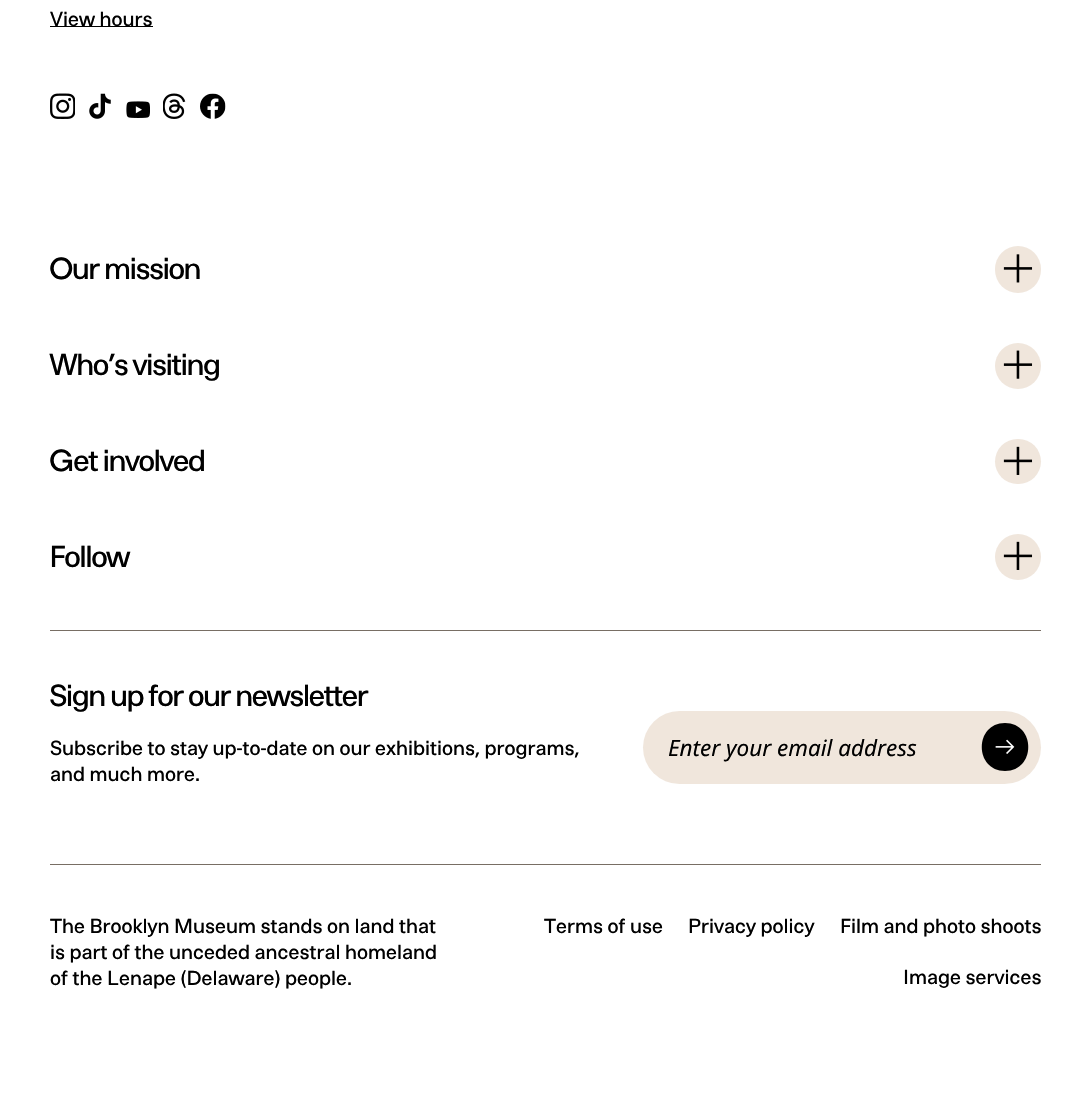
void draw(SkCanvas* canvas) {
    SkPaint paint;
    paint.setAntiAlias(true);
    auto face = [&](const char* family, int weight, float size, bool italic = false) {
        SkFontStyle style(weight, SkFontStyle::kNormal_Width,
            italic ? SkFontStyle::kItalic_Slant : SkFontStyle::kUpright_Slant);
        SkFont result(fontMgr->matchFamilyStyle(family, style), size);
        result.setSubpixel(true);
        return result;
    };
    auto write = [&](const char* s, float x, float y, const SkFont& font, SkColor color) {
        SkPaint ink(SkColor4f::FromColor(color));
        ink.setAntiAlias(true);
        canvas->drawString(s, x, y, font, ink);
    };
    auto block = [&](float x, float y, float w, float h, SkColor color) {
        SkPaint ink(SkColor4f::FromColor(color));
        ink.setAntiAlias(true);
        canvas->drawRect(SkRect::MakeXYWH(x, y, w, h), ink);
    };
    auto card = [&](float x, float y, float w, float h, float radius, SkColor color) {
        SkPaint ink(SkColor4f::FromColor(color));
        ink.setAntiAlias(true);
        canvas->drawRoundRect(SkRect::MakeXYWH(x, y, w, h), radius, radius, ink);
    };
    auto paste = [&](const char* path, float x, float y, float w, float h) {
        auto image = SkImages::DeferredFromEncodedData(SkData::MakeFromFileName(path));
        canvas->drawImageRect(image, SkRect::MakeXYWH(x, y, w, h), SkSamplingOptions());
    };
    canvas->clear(SK_ColorWHITE);
    block(50, 630, 991, 1, SkColorSetRGB(120, 110, 100));
    block(50, 26, 103, 1, SK_ColorBLACK);
    auto kFont1 = face("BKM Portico", 400, 20);
    write("View hours", 50, 26, kFont1, SK_ColorBLACK);
    paste("pic1.png", 50, 93, 25, 26);
    paste("pic2.png", 89, 93, 22, 26);
    paste("pic3.png", 126, 101, 24, 17);
    paste("pic4.png", 163, 93, 23, 26);
    paste("pic5.png", 200, 93, 26, 26);
    auto kFont2 = face("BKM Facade", 400, 30);
    write("Our mission", 50, 279, kFont2, SK_ColorBLACK);
    card(995, 246, 46, 47, 23, SkColorSetRGB(240, 230, 220));
    paste("pic6.png", 1003, 254, 30, 29);
    write("Who’s visiting", 50, 375, kFont2, SK_ColorBLACK);
    paint.setColor(SkColorSetRGB(240, 230, 220));
    canvas->drawCircle(1018, 366, 23, paint);
    paste("pic7.png", 1003, 350, 30, 29);
    write("Get involved", 50, 471, kFont2, SK_ColorBLACK);
    card(995, 439, 46, 45, 22.5f, SkColorSetRGB(240, 230, 220));
    paste("pic8.png", 1003, 446, 30, 29);
    write("Follow", 50, 567, kFont2, SK_ColorBLACK);
    canvas->drawCircle(1018, 557, 23, paint);
    paste("pic8.png", 1003, 541, 30, 29);
    block(50, 864, 991, 1, SkColorSetRGB(120, 110, 100));
    write("Sign up for our newsletter", 50, 706, kFont2, SK_ColorBLACK);
    write("Subscribe to stay up-to-date on our exhibitions, programs,", 50, 755, kFont1, SK_ColorBLACK);
    write("and much more.", 50, 781, kFont1, SK_ColorBLACK);
    card(643, 711, 398, 73, 36.5f, SkColorSetRGB(240, 230, 220));
    auto kFont3 = face("Noto Sans", 400, 22.5f, true);
    write("Enter your email address", 668, 756, kFont3, SK_ColorBLACK);
    paint.setColor(SK_ColorBLACK);
    canvas->drawPath(SkPathBuilder().moveTo(1005, 723).cubicTo(974, 723, 974, 771, 1005, 771).cubicTo(1036, 771, 1036, 723, 1005, 723).close().detach(), paint);
    paste("pic9.png", 995, 739, 20, 15);
    write("The Brooklyn Museum stands on land that", 50, 933, kFont1, SK_ColorBLACK);
    write("is part of the unceded ancestral homeland", 50, 959, kFont1, SK_ColorBLACK);
    write("of the Lenape (Delaware) people.", 50, 985, kFont1, SK_ColorBLACK);
    write("Terms of use", 544, 933, kFont1, SK_ColorBLACK);
    write("Privacy policy", 688, 933, kFont1, SK_ColorBLACK);
    write("Film and photo shoots", 840, 933, kFont1, SK_ColorBLACK);
    write("Image services", 903, 984, kFont1, SK_ColorBLACK);
}
